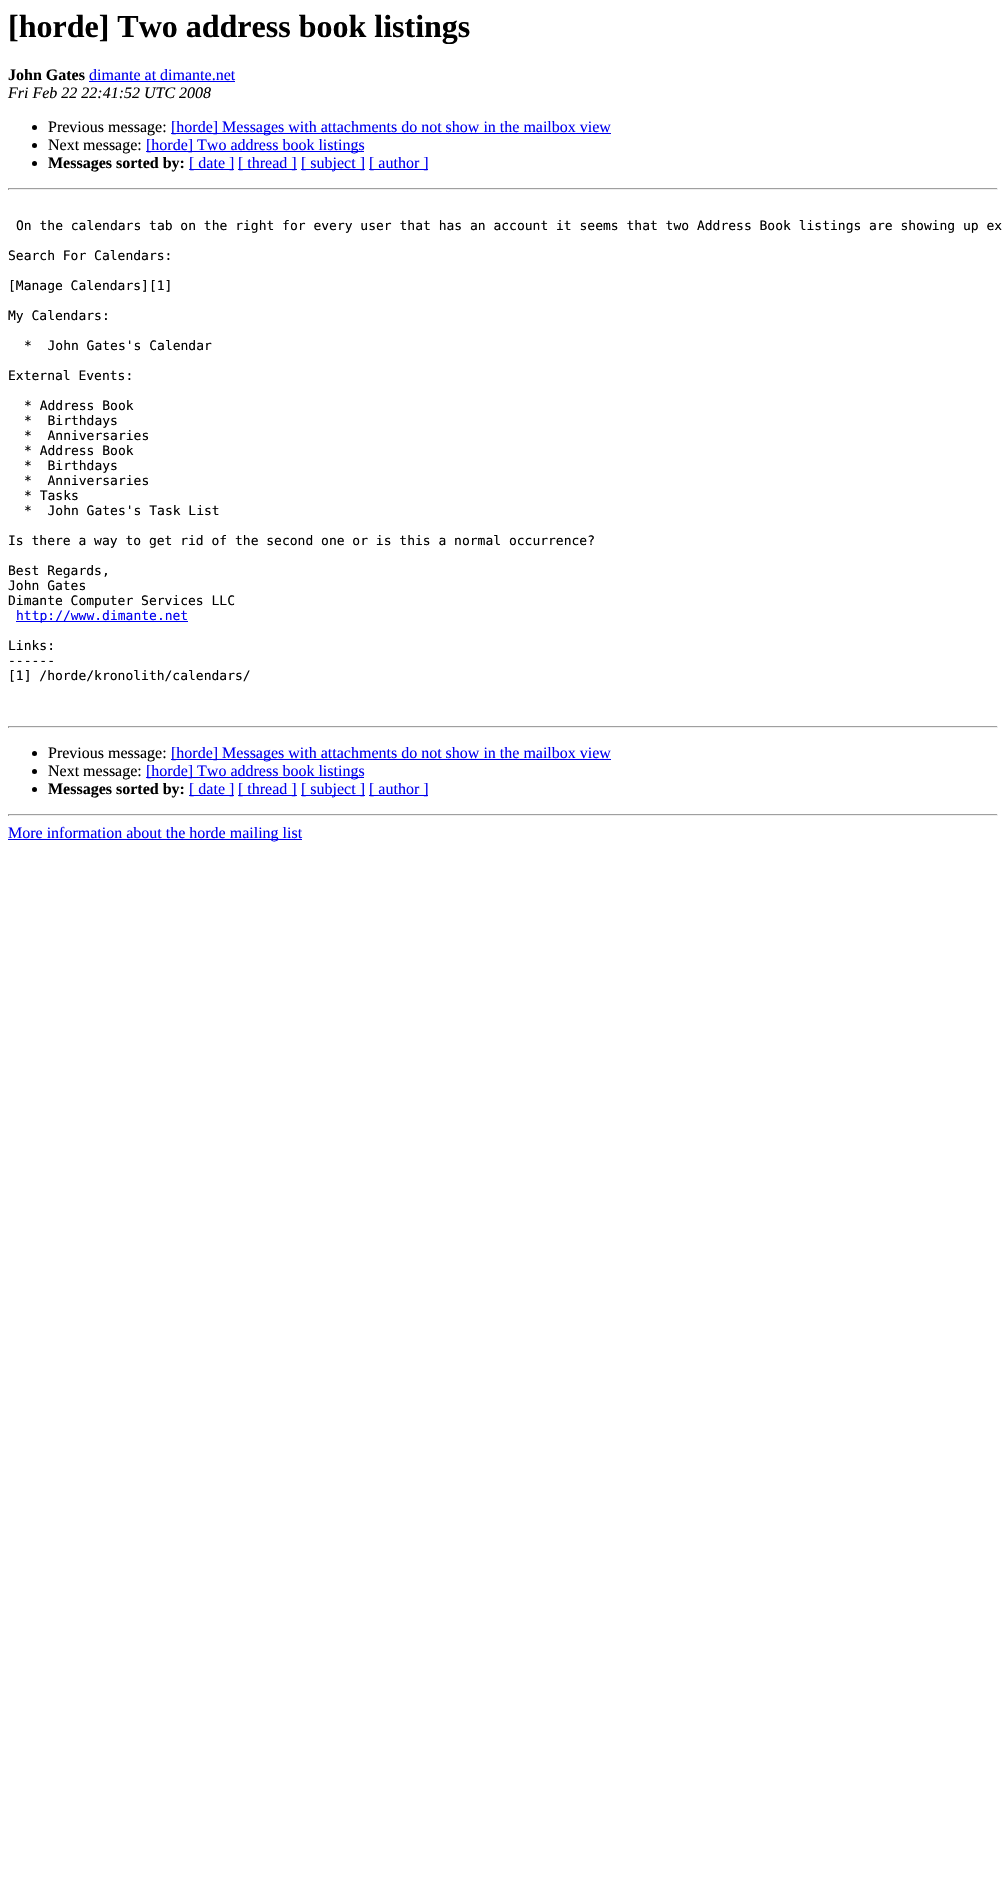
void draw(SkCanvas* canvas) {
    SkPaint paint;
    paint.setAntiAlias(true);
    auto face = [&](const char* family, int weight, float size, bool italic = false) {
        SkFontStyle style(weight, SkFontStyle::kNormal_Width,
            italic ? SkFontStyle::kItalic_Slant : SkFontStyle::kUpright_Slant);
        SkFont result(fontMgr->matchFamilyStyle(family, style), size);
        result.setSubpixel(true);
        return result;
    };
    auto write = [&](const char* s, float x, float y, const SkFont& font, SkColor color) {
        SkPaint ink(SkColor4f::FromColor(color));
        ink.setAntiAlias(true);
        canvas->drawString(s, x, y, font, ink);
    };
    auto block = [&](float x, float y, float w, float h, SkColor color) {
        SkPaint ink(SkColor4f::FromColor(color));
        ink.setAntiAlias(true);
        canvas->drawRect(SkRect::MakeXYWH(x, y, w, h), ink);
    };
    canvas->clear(SK_ColorWHITE);
    auto kFont1 = face("Liberation Serif", 700, 32);
    write("[horde] Two address book listings", 8, 37, kFont1, SK_ColorBLACK);
    auto kFont2 = face("Liberation Serif", 700, 16);
    write("John Gates", 8, 80, kFont2, SK_ColorBLACK);
    auto kFont3 = face("Liberation Serif", 400, 16);
    write("dimante at dimante.net", 89, 80, kFont3, SkColorSetRGB(0, 0, 238));
    block(89, 81, 146, 1, SkColorSetRGB(0, 0, 238));
    auto kFont4 = face("Liberation Serif", 400, 16, true);
    write("Fri Feb 22 22:41:52 UTC 2008", 8, 98, kFont4, SK_ColorBLACK);
    paint.setColor(SK_ColorBLACK);
    canvas->drawCircle(34.5f, 127.5f, 2.5f, paint);
    write("Previous message:", 48, 132, kFont3, SK_ColorBLACK);
    block(171, 133, 440, 1, SkColorSetRGB(0, 0, 238));
    write("[horde] Messages with attachments do not show in the mailbox view", 171, 132, kFont3, SkColorSetRGB(0, 0, 238));
    canvas->drawCircle(34.5f, 145.5f, 2.5f, paint);
    write("Next message:", 48, 150, kFont3, SK_ColorBLACK);
    block(146, 151, 218, 1, SkColorSetRGB(0, 0, 238));
    write("[horde] Two address book listings", 146, 150, kFont3, SkColorSetRGB(0, 0, 238));
    canvas->drawCircle(34.5f, 163.5f, 2.5f, paint);
    write("Messages sorted by:", 48, 168, kFont2, SK_ColorBLACK);
    block(189, 169, 45, 1, SkColorSetRGB(0, 0, 238));
    write("[ date ]", 189, 168, kFont3, SkColorSetRGB(0, 0, 238));
    block(238, 169, 59, 1, SkColorSetRGB(0, 0, 238));
    write("[ thread ]", 238, 168, kFont3, SkColorSetRGB(0, 0, 238));
    block(301, 169, 64, 1, SkColorSetRGB(0, 0, 238));
    write("[ subject ]", 301, 168, kFont3, SkColorSetRGB(0, 0, 238));
    block(369, 169, 59, 1, SkColorSetRGB(0, 0, 238));
    write("[ author ]", 369, 168, kFont3, SkColorSetRGB(0, 0, 238));
    block(8, 188, 990, 1, SkColorSetRGB(159, 159, 159));
    block(997, 188, 1, 2, SkColorSetRGB(238, 238, 238));
    block(8, 189, 990, 1, SkColorSetRGB(238, 238, 238));
    block(8, 188, 1, 2, SkColorSetRGB(159, 159, 159));
    auto kFont5 = face("DejaVu Sans Mono", 400, 13);
    write("On the calendars tab on the right for every user that has an account it seems that two Address Book listings are showing up ex", 16, 230, kFont5, SK_ColorBLACK);
    write("Search For Calendars:", 8, 260, kFont5, SK_ColorBLACK);
    write("[Manage Calendars][1]", 8, 290, kFont5, SK_ColorBLACK);
    write("My Calendars:", 8, 320, kFont5, SK_ColorBLACK);
    write("*  John Gates's Calendar", 24, 350, kFont5, SK_ColorBLACK);
    write("External Events:", 8, 380, kFont5, SK_ColorBLACK);
    write("* Address Book", 24, 410, kFont5, SK_ColorBLACK);
    write("*  Birthdays", 24, 425, kFont5, SK_ColorBLACK);
    write("*  Anniversaries", 24, 440, kFont5, SK_ColorBLACK);
    write("* Address Book", 24, 455, kFont5, SK_ColorBLACK);
    write("*  Birthdays", 24, 470, kFont5, SK_ColorBLACK);
    write("*  Anniversaries", 24, 485, kFont5, SK_ColorBLACK);
    write("* Tasks", 24, 500, kFont5, SK_ColorBLACK);
    write("*  John Gates's Task List", 24, 515, kFont5, SK_ColorBLACK);
    write("Is there a way to get rid of the second one or is this a normal occurrence?", 8, 545, kFont5, SK_ColorBLACK);
    write("Best Regards,", 8, 575, kFont5, SK_ColorBLACK);
    write("John Gates", 8, 590, kFont5, SK_ColorBLACK);
    write("Dimante Computer Services LLC", 8, 605, kFont5, SK_ColorBLACK);
    block(16, 621, 172, 1, SkColorSetRGB(0, 0, 238));
    write("http://www.dimante.net", 16, 620, kFont5, SkColorSetRGB(0, 0, 238));
    write("Links:", 8, 650, kFont5, SK_ColorBLACK);
    write("------", 8, 665, kFont5, SK_ColorBLACK);
    write("[1] /horde/kronolith/calendars/", 8, 680, kFont5, SK_ColorBLACK);
    block(8, 726, 990, 1, SkColorSetRGB(159, 159, 159));
    block(997, 726, 1, 2, SkColorSetRGB(238, 238, 238));
    block(8, 727, 990, 1, SkColorSetRGB(238, 238, 238));
    block(8, 726, 1, 2, SkColorSetRGB(159, 159, 159));
    canvas->drawCircle(34.5f, 753.5f, 2.5f, paint);
    write("Previous message:", 48, 758, kFont3, SK_ColorBLACK);
    block(171, 759, 440, 1, SkColorSetRGB(0, 0, 238));
    write("[horde] Messages with attachments do not show in the mailbox view", 171, 758, kFont3, SkColorSetRGB(0, 0, 238));
    canvas->drawCircle(34.5f, 771.5f, 2.5f, paint);
    write("Next message:", 48, 776, kFont3, SK_ColorBLACK);
    block(146, 777, 218, 1, SkColorSetRGB(0, 0, 238));
    write("[horde] Two address book listings", 146, 776, kFont3, SkColorSetRGB(0, 0, 238));
    canvas->drawCircle(34.5f, 789.5f, 2.5f, paint);
    write("Messages sorted by:", 48, 794, kFont2, SK_ColorBLACK);
    block(189, 795, 45, 1, SkColorSetRGB(0, 0, 238));
    write("[ date ]", 189, 794, kFont3, SkColorSetRGB(0, 0, 238));
    block(238, 795, 59, 1, SkColorSetRGB(0, 0, 238));
    write("[ thread ]", 238, 794, kFont3, SkColorSetRGB(0, 0, 238));
    block(301, 795, 64, 1, SkColorSetRGB(0, 0, 238));
    write("[ subject ]", 301, 794, kFont3, SkColorSetRGB(0, 0, 238));
    block(369, 795, 59, 1, SkColorSetRGB(0, 0, 238));
    write("[ author ]", 369, 794, kFont3, SkColorSetRGB(0, 0, 238));
    block(8, 814, 990, 1, SkColorSetRGB(159, 159, 159));
    block(997, 814, 1, 2, SkColorSetRGB(238, 238, 238));
    block(8, 815, 990, 1, SkColorSetRGB(238, 238, 238));
    block(8, 814, 1, 2, SkColorSetRGB(159, 159, 159));
    block(8, 839, 294, 1, SkColorSetRGB(0, 0, 238));
    write("More information about the horde mailing list", 8, 838, kFont3, SkColorSetRGB(0, 0, 238));
}
